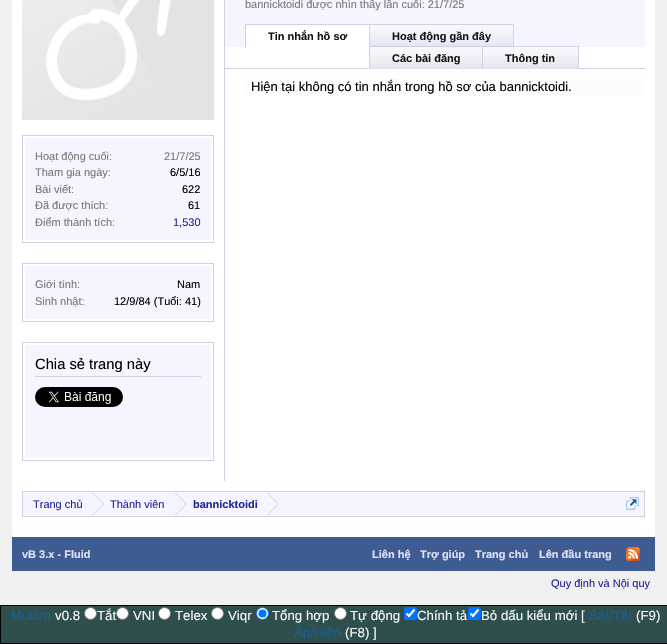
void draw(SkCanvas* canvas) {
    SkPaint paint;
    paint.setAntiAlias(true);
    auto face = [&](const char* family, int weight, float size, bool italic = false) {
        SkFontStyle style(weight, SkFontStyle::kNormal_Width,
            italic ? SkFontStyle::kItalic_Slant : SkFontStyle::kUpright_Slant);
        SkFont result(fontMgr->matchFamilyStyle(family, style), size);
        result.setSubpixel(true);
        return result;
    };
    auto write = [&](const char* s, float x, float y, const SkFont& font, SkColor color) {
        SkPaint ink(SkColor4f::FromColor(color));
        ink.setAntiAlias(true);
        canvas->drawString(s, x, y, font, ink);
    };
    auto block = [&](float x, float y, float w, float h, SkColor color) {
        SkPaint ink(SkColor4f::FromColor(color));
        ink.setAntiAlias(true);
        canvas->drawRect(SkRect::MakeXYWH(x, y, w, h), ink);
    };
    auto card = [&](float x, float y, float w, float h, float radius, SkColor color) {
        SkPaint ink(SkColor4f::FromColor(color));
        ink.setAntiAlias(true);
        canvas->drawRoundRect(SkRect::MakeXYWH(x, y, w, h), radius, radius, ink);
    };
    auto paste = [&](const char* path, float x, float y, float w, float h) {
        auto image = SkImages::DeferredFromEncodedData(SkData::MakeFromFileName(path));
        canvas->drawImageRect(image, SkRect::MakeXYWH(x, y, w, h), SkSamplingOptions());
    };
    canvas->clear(SkColorSetRGB(240, 240, 240));
    block(12, 0, 643, 537, SK_ColorWHITE);
    block(225, 0, 420, 47, SkColorSetRGB(245, 245, 255));
    auto kFont1 = face("Liberation Sans", 400, 11);
    write("bannicktoidi được nhìn thấy lần cuối: 21/7/25", 245, 8, kFont1, SkColorSetRGB(119, 119, 119));
    block(225, 68, 420, 1, SkColorSetRGB(209, 209, 225));
    block(246, 25, 123, 22, SK_ColorWHITE);
    block(245, 24, 269, 1, SkColorSetRGB(209, 209, 225));
    block(245, 24, 1, 24, SkColorSetRGB(209, 209, 225));
    auto kFont2 = face("Liberation Sans", 700, 11);
    write("Tin nhắn hồ sơ", 268, 40, kFont2, SkColorSetRGB(20, 20, 20));
    block(370, 25, 143, 21, SkColorSetRGB(225, 228, 242));
    paste("pic1.png", 370, 25, 143, 20);
    block(513, 24, 1, 23, SkColorSetRGB(209, 209, 225));
    block(369, 24, 1, 23, SkColorSetRGB(209, 209, 225));
    write("Hoạt động gần đây", 392, 40, kFont2, SkColorSetRGB(20, 20, 20));
    block(370, 47, 112, 22, SkColorSetRGB(225, 228, 242));
    paste("pic2.png", 370, 47, 112, 20);
    block(369, 46, 210, 1, SkColorSetRGB(209, 209, 225));
    block(369, 46, 1, 23, SkColorSetRGB(209, 209, 225));
    write("Các bài đăng", 392, 62, kFont2, SkColorSetRGB(20, 20, 20));
    block(483, 47, 95, 22, SkColorSetRGB(225, 228, 242));
    paste("pic3.png", 483, 47, 95, 20);
    block(578, 46, 1, 23, SkColorSetRGB(209, 209, 225));
    block(482, 46, 1, 23, SkColorSetRGB(209, 209, 225));
    write("Thông tin", 505, 62, kFont2, SkColorSetRGB(20, 20, 20));
    block(245, 79, 400, 17, SkColorSetRGB(252, 252, 255));
    auto kFont3 = face("Liberation Sans", 400, 13);
    write("Hiện tại không có tin nhắn trong hồ sơ của bannicktoidi.", 251, 91, kFont3, SK_ColorBLACK);
    block(224, 0, 1, 481, SkColorSetRGB(209, 209, 225));
    paste("pic4.png", 22, 0, 192, 120);
    paint.setStyle(SkPaint::kStroke_Style);
    paint.setStrokeWidth(1);
    paint.setColor(SkColorSetRGB(209, 209, 225));
    canvas->drawRect(SkRect::MakeXYWH(22.5f, 135.5f, 191, 107), paint);
    block(25, 138, 186, 102, SkColorSetRGB(245, 245, 255));
    write("Hoạt động cuối:", 35, 160, kFont1, SkColorSetRGB(119, 119, 119));
    write("21/7/25", 164, 160, kFont1, SkColorSetRGB(119, 119, 119));
    write("Tham gia ngày:", 35, 176, kFont1, SkColorSetRGB(119, 119, 119));
    write("6/5/16", 170, 176, kFont1, SK_ColorBLACK);
    write("Bài viết:", 35, 193, kFont1, SkColorSetRGB(119, 119, 119));
    write("622", 182, 193, kFont1, SK_ColorBLACK);
    write("Đã được thích:", 35, 209, kFont1, SkColorSetRGB(119, 119, 119));
    write("61", 188, 209, kFont1, SK_ColorBLACK);
    write("Điểm thành tích:", 35, 226, kFont1, SkColorSetRGB(119, 119, 119));
    write("1,530", 173, 226, kFont1, SkColorSetRGB(34, 34, 156));
    canvas->drawRect(SkRect::MakeXYWH(22.5f, 263.5f, 191, 58), paint);
    block(25, 266, 186, 53, SkColorSetRGB(245, 245, 255));
    write("Giới tính:", 35, 288, kFont1, SkColorSetRGB(119, 119, 119));
    write("Nam", 177, 288, kFont1, SK_ColorBLACK);
    write("Sinh nhật:", 35, 305, kFont1, SkColorSetRGB(119, 119, 119));
    write("12/9/84 (Tuổi: 41)", 114, 305, kFont1, SK_ColorBLACK);
    canvas->drawRect(SkRect::MakeXYWH(22.5f, 342.5f, 191, 118), paint);
    block(25, 345, 186, 113, SkColorSetRGB(245, 245, 255));
    block(35, 376, 166, 1, SkColorSetRGB(209, 209, 225));
    auto kFont4 = face("Liberation Sans", 400, 14.75f);
    write("Chia sẻ trang này", 35, 369, kFont4, SK_ColorBLACK);
    paste("pic5.png", 35, 387, 88, 20);
    paint.setStyle(SkPaint::kFill_Style);
    paint.setColor(SkColorSetRGB(245, 245, 255));
    canvas->drawRect(SkRect::MakeXYWH(22.5f, 491.5f, 622, 25), paint);
    paint.setStyle(SkPaint::kStroke_Style);
    paint.setColor(SkColorSetRGB(209, 209, 225));
    canvas->drawRect(SkRect::MakeXYWH(22.5f, 491.5f, 622, 25), paint);
    write("Trang chủ", 33, 508, kFont1, SkColorSetRGB(34, 34, 156));
    paint.setStyle(SkPaint::kFill_Style);
    canvas->drawPath(SkPathBuilder().moveTo(92, 516).lineTo(92, 492).lineTo(104, 504).close().detach(), paint);
    paint.setColor(SkColorSetRGB(245, 245, 255));
    canvas->drawPath(SkPathBuilder().moveTo(91, 516).lineTo(91, 492).lineTo(103, 504).close().detach(), paint);
    write("Thành viên", 110, 508, kFont1, SkColorSetRGB(34, 34, 156));
    paint.setColor(SkColorSetRGB(209, 209, 225));
    canvas->drawPath(SkPathBuilder().moveTo(175, 516).lineTo(175, 492).lineTo(187, 504).close().detach(), paint);
    paint.setColor(SkColorSetRGB(245, 245, 255));
    canvas->drawPath(SkPathBuilder().moveTo(174, 516).lineTo(174, 492).lineTo(186, 504).close().detach(), paint);
    write("bannicktoidi", 193, 508, kFont2, SkColorSetRGB(34, 34, 156));
    paint.setColor(SkColorSetRGB(209, 209, 225));
    canvas->drawPath(SkPathBuilder().moveTo(267, 516).lineTo(267, 492).lineTo(279, 504).close().detach(), paint);
    paint.setColor(SkColorSetRGB(245, 245, 255));
    canvas->drawPath(SkPathBuilder().moveTo(266, 516).lineTo(266, 492).lineTo(278, 504).close().detach(), paint);
    paste("pic6.png", 626, 497, 13, 13);
    block(12, 537, 643, 34, SkColorSetRGB(62, 92, 146));
    write("vB 3.x - Fluid", 22, 558, kFont2, SkColorSetRGB(224, 224, 246));
    write("Liên hệ", 372, 558, kFont2, SkColorSetRGB(224, 224, 246));
    write("Trợ giúp", 420, 558, kFont2, SkColorSetRGB(224, 224, 246));
    write("Trang chủ", 475, 558, kFont2, SkColorSetRGB(224, 224, 246));
    write("Lên đầu trang", 539, 558, kFont2, SkColorSetRGB(224, 224, 246));
    paste("pic7.png", 626, 547, 14, 14);
    write("Quy định và Nội quy", 551, 587, kFont1, SkColorSetRGB(34, 34, 156));
    paint.setColor(SkColorSetRGB(47, 79, 79));
    canvas->drawRect(SkRect::MakeXYWH(0.5f, 605.5f, 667, 38), paint);
    paint.setStyle(SkPaint::kStroke_Style);
    paint.setColor(SK_ColorBLACK);
    canvas->drawRect(SkRect::MakeXYWH(0.5f, 605.5f, 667, 38), paint);
    auto kFont5 = face("Liberation Sans", 400, 13.25f);
    write("Mudim", 11, 620, kFont5, SkColorSetRGB(23, 96, 147));
    write("v0.8", 55, 620, kFont5, SkColorSetRGB(245, 245, 245));
    paint.setStyle(SkPaint::kFill_Style);
    paint.setColor(SK_ColorWHITE);
    canvas->drawCircle(90.5f, 613.5f, 6, paint);
    paint.setStyle(SkPaint::kStroke_Style);
    paint.setColor(SkColorSetRGB(118, 118, 118));
    canvas->drawCircle(90.5f, 613.5f, 6, paint);
    write("Tắt", 97, 620, kFont5, SkColorSetRGB(245, 245, 245));
    paint.setStyle(SkPaint::kFill_Style);
    paint.setColor(SK_ColorWHITE);
    canvas->drawCircle(122.5f, 613.5f, 6, paint);
    paint.setStyle(SkPaint::kStroke_Style);
    paint.setColor(SkColorSetRGB(118, 118, 118));
    canvas->drawCircle(122.5f, 613.5f, 6, paint);
    write("VNI", 133, 620, kFont5, SkColorSetRGB(245, 245, 245));
    paint.setStyle(SkPaint::kFill_Style);
    paint.setColor(SK_ColorWHITE);
    canvas->drawCircle(164.5f, 613.5f, 6, paint);
    paint.setStyle(SkPaint::kStroke_Style);
    paint.setColor(SkColorSetRGB(118, 118, 118));
    canvas->drawCircle(164.5f, 613.5f, 6, paint);
    write("Telex", 175, 620, kFont5, SkColorSetRGB(245, 245, 245));
    paint.setStyle(SkPaint::kFill_Style);
    paint.setColor(SK_ColorWHITE);
    canvas->drawCircle(217.5f, 613.5f, 6, paint);
    paint.setStyle(SkPaint::kStroke_Style);
    paint.setColor(SkColorSetRGB(118, 118, 118));
    canvas->drawCircle(217.5f, 613.5f, 6, paint);
    write("Viqr", 228, 620, kFont5, SkColorSetRGB(245, 245, 245));
    paint.setStyle(SkPaint::kFill_Style);
    paint.setColor(SK_ColorWHITE);
    canvas->drawCircle(262.5f, 613.5f, 6, paint);
    paint.setStyle(SkPaint::kStroke_Style);
    paint.setColor(SkColorSetRGB(0, 117, 255));
    canvas->drawCircle(262.5f, 613.5f, 6, paint);
    paint.setStyle(SkPaint::kFill_Style);
    canvas->drawCircle(262.5f, 613.5f, 4, paint);
    write("Tổng hợp", 272, 620, kFont5, SkColorSetRGB(245, 245, 245));
    paint.setColor(SK_ColorWHITE);
    canvas->drawCircle(340.5f, 613.5f, 6, paint);
    paint.setStyle(SkPaint::kStroke_Style);
    paint.setColor(SkColorSetRGB(118, 118, 118));
    canvas->drawCircle(340.5f, 613.5f, 6, paint);
    write("Tự động", 350, 620, kFont5, SkColorSetRGB(245, 245, 245));
    card(404, 607, 13, 13, 2, SkColorSetRGB(0, 117, 255));
    paint.setStrokeWidth(2.1f);
    paint.setColor(SK_ColorWHITE);
    canvas->drawPath(SkPathBuilder().moveTo(406.5f, 613.5f).lineTo(409, 616).lineTo(414.5f, 609.5f).detach(), paint);
    write("Chính tả", 417, 620, kFont5, SkColorSetRGB(245, 245, 245));
    card(468, 607, 13, 13, 2, SkColorSetRGB(0, 117, 255));
    canvas->drawPath(SkPathBuilder().moveTo(470.5f, 613.5f).lineTo(473, 616).lineTo(478.5f, 609.5f).detach(), paint);
    write("Bỏ dấu kiểu mới [", 481, 620, kFont5, SkColorSetRGB(245, 245, 245));
    write("Bật/Tắt", 589, 620, kFont5, SkColorSetRGB(23, 96, 147));
    write("(F9)", 636, 620, kFont5, SkColorSetRGB(245, 245, 245));
    write("Ẩn/Hiện", 294, 637, kFont5, SkColorSetRGB(23, 96, 147));
    write("(F8) ]", 345, 637, kFont5, SkColorSetRGB(245, 245, 245));
}
